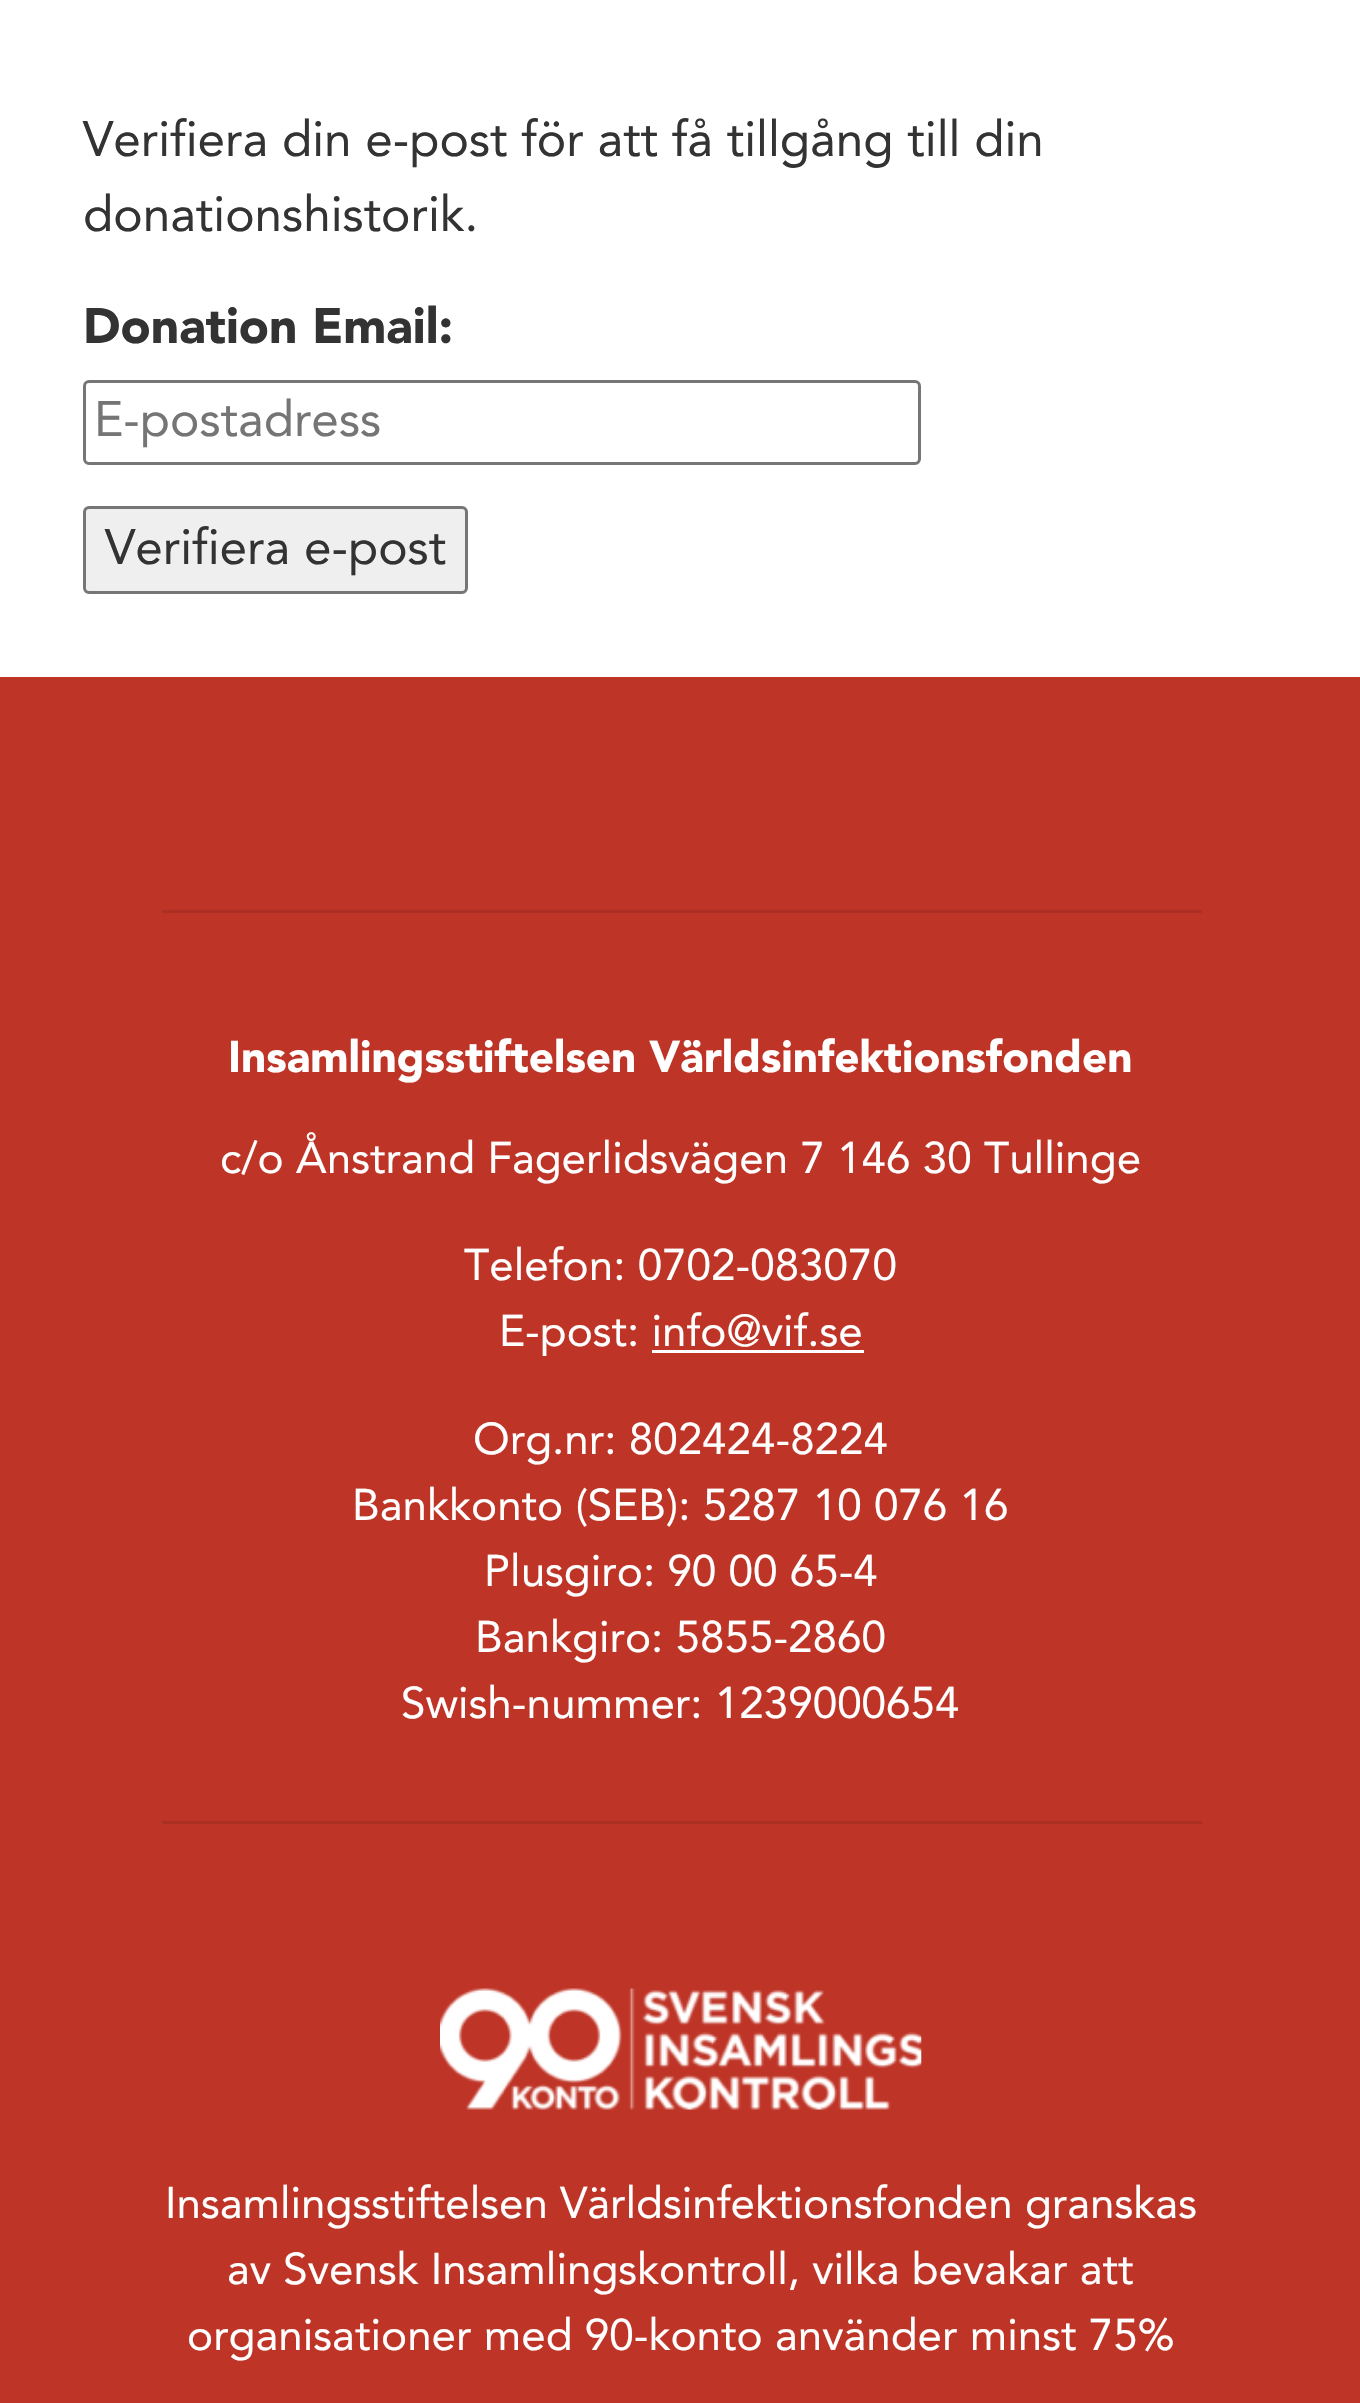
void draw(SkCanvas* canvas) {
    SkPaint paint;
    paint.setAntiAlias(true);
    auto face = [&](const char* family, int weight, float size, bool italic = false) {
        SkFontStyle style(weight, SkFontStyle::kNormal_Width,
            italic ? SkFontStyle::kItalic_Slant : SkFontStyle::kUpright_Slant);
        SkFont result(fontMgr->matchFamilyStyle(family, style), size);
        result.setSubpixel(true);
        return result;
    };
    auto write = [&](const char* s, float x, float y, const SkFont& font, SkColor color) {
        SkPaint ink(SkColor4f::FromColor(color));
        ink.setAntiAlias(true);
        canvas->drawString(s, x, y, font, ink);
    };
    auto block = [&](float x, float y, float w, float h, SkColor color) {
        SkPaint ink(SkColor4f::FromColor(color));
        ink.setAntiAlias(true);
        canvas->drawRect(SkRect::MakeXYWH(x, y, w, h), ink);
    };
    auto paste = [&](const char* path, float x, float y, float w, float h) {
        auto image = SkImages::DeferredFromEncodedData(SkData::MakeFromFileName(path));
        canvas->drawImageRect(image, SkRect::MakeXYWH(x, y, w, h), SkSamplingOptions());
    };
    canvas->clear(SK_ColorWHITE);
    auto kFont1 = face("Avenir", 400, 49.5f);
    write("Verifiera din e-post för att få tillgång till din", 83, 156, kFont1, SkColorSetRGB(51, 51, 51));
    write("donationshistorik.", 83, 231, kFont1, SkColorSetRGB(51, 51, 51));
    auto kFont2 = face("Avenir", 900, 49.5f);
    write("Donation Email:", 83, 343, kFont2, SkColorSetRGB(51, 51, 51));
    paint.setStyle(SkPaint::kStroke_Style);
    paint.setStrokeWidth(3);
    paint.setColor(SkColorSetRGB(118, 118, 118));
    canvas->drawRoundRect(SkRect::MakeXYWH(84.5f, 381.5f, 835, 82), 4.5f, 4.5f, paint);
    write("E-postadress", 94, 436, kFont1, SkColorSetRGB(117, 117, 117));
    paint.setStyle(SkPaint::kFill_Style);
    paint.setColor(SkColorSetRGB(239, 239, 239));
    canvas->drawRoundRect(SkRect::MakeXYWH(84.5f, 507.5f, 382, 85), 4.5f, 4.5f, paint);
    paint.setStyle(SkPaint::kStroke_Style);
    paint.setColor(SkColorSetRGB(118, 118, 118));
    canvas->drawRoundRect(SkRect::MakeXYWH(84.5f, 507.5f, 382, 85), 4.5f, 4.5f, paint);
    write("Verifiera e-post", 105, 564, kFont1, SkColorSetRGB(51, 51, 51));
    block(0, 677, 1360, 1726, SkColorSetRGB(190, 52, 38));
    block(162, 910, 1040, 3, SkColorSetRGB(171, 47, 34));
    block(162, 1821, 1040, 3, SkColorSetRGB(171, 47, 34));
    auto kFont3 = face("Avenir", 900, 44);
    write("Insamlingsstiftelsen Världsinfektionsfonden", 228, 1072, kFont3, SK_ColorWHITE);
    auto kFont4 = face("Avenir", 400, 44);
    write("c/o Ånstrand Fagerlidsvägen 7 146 30 Tullinge", 220, 1173, kFont4, SK_ColorWHITE);
    write("Telefon: 0702-083070", 464, 1280, kFont4, SK_ColorWHITE);
    write("E-post: info@vif.se", 499, 1346, kFont4, SK_ColorWHITE);
    block(652, 1350, 212, 3, SK_ColorWHITE);
    write("Org.nr: 802424-8224", 473, 1454, kFont4, SK_ColorWHITE);
    write("Bankkonto (SEB): 5287 10 076 16", 352, 1520, kFont4, SK_ColorWHITE);
    write("Plusgiro: 90 00 65-4", 484, 1586, kFont4, SK_ColorWHITE);
    write("Bankgiro: 5855-2860", 475, 1652, kFont4, SK_ColorWHITE);
    write("Swish-nummer: 1239000654", 401, 1718, kFont4, SK_ColorWHITE);
    paste("pic1.png", 440, 1988, 482, 122);
    write("Insamlingsstiftelsen Världsinfektionsfonden granskas", 165, 2218, kFont4, SK_ColorWHITE);
    write("av Svensk Insamlingskontroll, vilka bevakar att", 227, 2284, kFont4, SK_ColorWHITE);
    write("organisationer med 90-konto använder minst 75%", 187, 2350, kFont4, SK_ColorWHITE);
}
